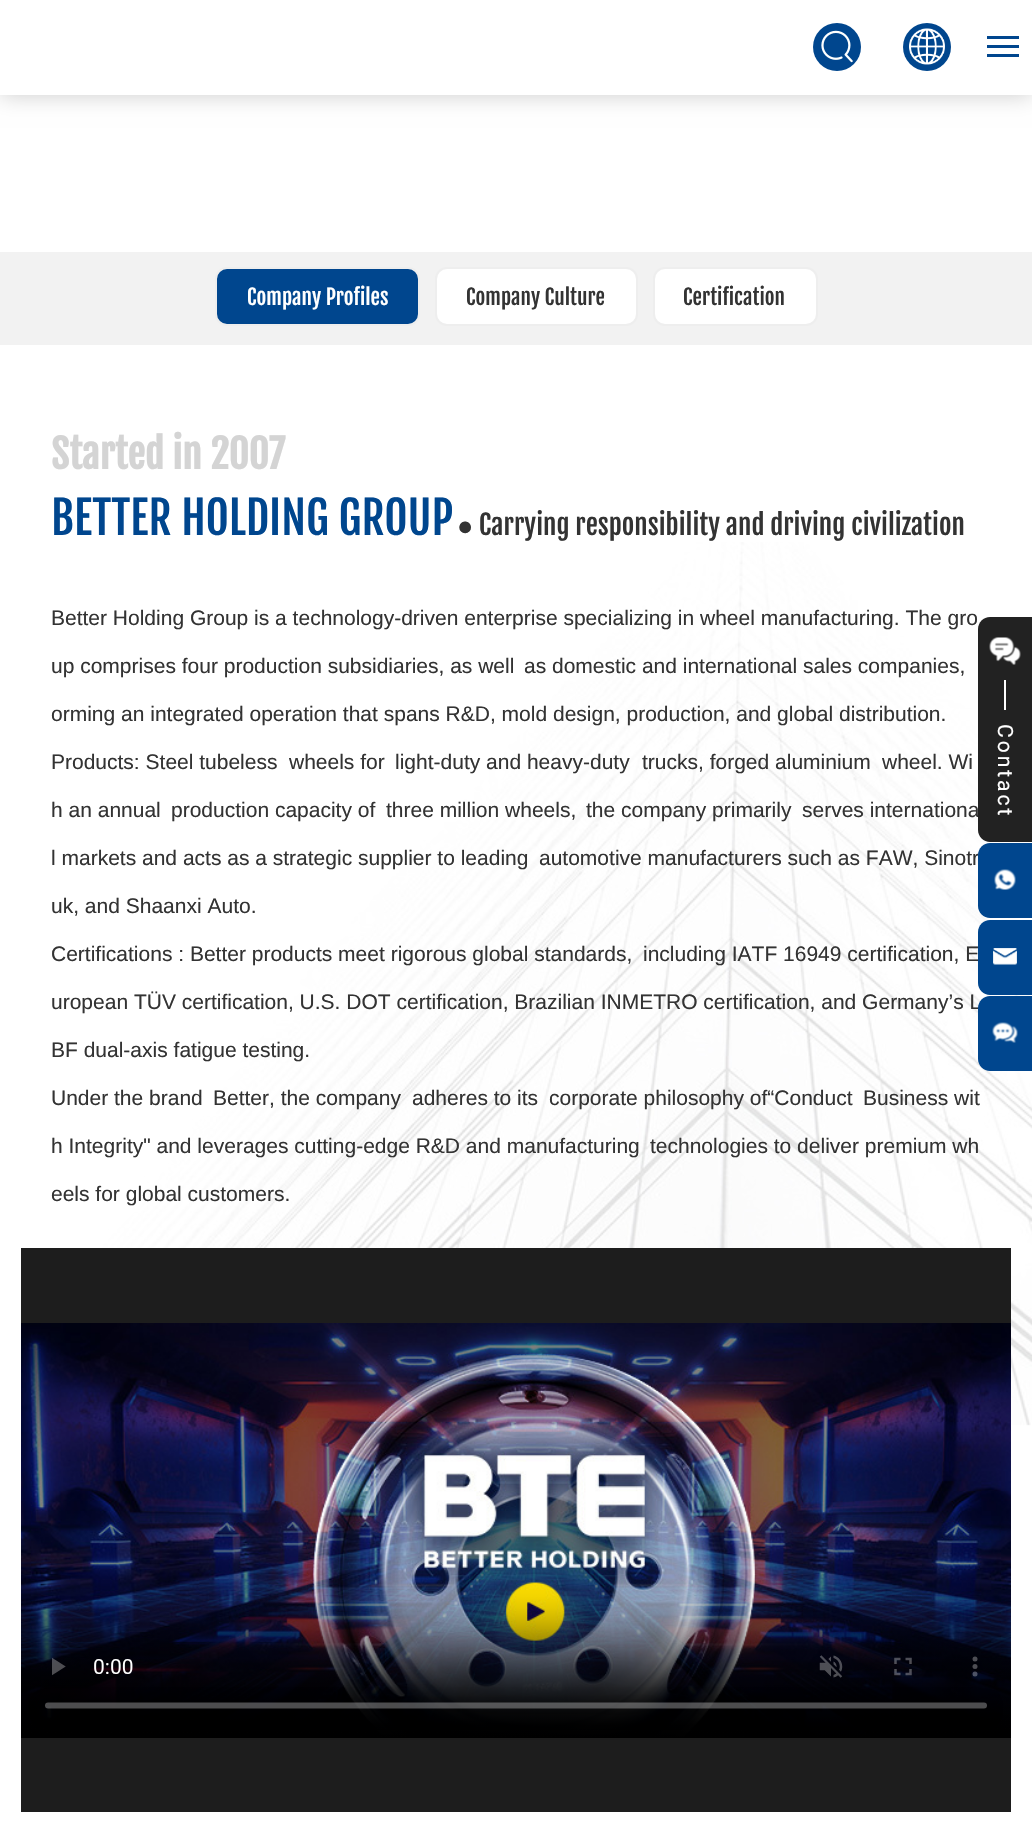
void draw(SkCanvas* canvas) {
    SkPaint paint;
    paint.setAntiAlias(true);
    auto face = [&](const char* family, int weight, float size, bool italic = false) {
        SkFontStyle style(weight, SkFontStyle::kNormal_Width,
            italic ? SkFontStyle::kItalic_Slant : SkFontStyle::kUpright_Slant);
        SkFont result(fontMgr->matchFamilyStyle(family, style), size);
        result.setSubpixel(true);
        return result;
    };
    auto write = [&](const char* s, float x, float y, const SkFont& font, SkColor color) {
        SkPaint ink(SkColor4f::FromColor(color));
        ink.setAntiAlias(true);
        canvas->drawString(s, x, y, font, ink);
    };
    auto writeSpaced = [&](const char* s, float x, float y, const SkFont& font, const SkPaint& ink, float letter, float word) {
        std::vector<SkGlyphID> glyphs(font.countText(s, strlen(s), SkTextEncoding::kUTF8));
        std::vector<float> xs(glyphs.size());
        font.textToGlyphs(s, strlen(s), SkTextEncoding::kUTF8, glyphs);
        font.getXPos(glyphs, xs, x);
        float extra = 0;
        for (size_t i = 0; i < glyphs.size(); i++) {
            xs[i] += extra;
            extra += letter + word * (glyphs[i] == font.unicharToGlyph(' '));
        }
        canvas->drawTextBlob(SkTextBlob::MakeFromPosHGlyphs(glyphs, xs, y, font), 0, 0, ink);
    };
    auto block = [&](float x, float y, float w, float h, SkColor color) {
        SkPaint ink(SkColor4f::FromColor(color));
        ink.setAntiAlias(true);
        canvas->drawRect(SkRect::MakeXYWH(x, y, w, h), ink);
    };
    auto paste = [&](const char* path, float x, float y, float w, float h) {
        auto image = SkImages::DeferredFromEncodedData(SkData::MakeFromFileName(path));
        canvas->drawImageRect(image, SkRect::MakeXYWH(x, y, w, h), SkSamplingOptions());
    };
    canvas->clear(SK_ColorWHITE);
    paint.setColor(SkColorSetARGB(51, 0, 0, 0));
    paint.setMaskFilter(SkMaskFilter::MakeBlur(kNormal_SkBlurStyle, 11));
    canvas->drawRect(SkRect::MakeXYWH(0, 0, 1032, 95), paint);
    paint.setMaskFilter(nullptr);
    block(0, 0, 1032, 95, SK_ColorWHITE);
    paint.setColor(SkColorSetRGB(0, 70, 142));
    canvas->drawCircle(837, 47, 24, paint);
    paste("pic1.png", 821, 30, 32, 33);
    canvas->drawCircle(927, 47, 24, paint);
    paste("pic2.png", 909, 28, 36, 37);
    block(987, 36, 32, 3, SkColorSetRGB(0, 70, 142));
    block(987, 45, 32, 3, SkColorSetRGB(0, 70, 142));
    block(987, 54, 32, 3, SkColorSetRGB(0, 70, 142));
    block(0, 252, 1032, 93, SkColorSetRGB(242, 242, 242));
    canvas->drawRoundRect(SkRect::MakeXYWH(216, 268, 203, 57), 11, 11, paint);
    paint.setStyle(SkPaint::kStroke_Style);
    paint.setStrokeWidth(2);
    paint.setColor(SkColorSetRGB(238, 238, 238));
    canvas->drawRoundRect(SkRect::MakeXYWH(216, 268, 203, 57), 11, 11, paint);
    auto kFont1 = face("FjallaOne", 400, 21);
    write("Company Profiles", 247, 305, kFont1, SK_ColorWHITE);
    paint.setStyle(SkPaint::kFill_Style);
    paint.setColor(SK_ColorWHITE);
    canvas->drawRoundRect(SkRect::MakeXYWH(436, 268, 201, 57), 11, 11, paint);
    paint.setStyle(SkPaint::kStroke_Style);
    paint.setColor(SkColorSetRGB(238, 238, 238));
    canvas->drawRoundRect(SkRect::MakeXYWH(436, 268, 201, 57), 11, 11, paint);
    write("Company Culture", 466, 305, kFont1, SkColorSetRGB(51, 51, 51));
    paint.setStyle(SkPaint::kFill_Style);
    paint.setColor(SK_ColorWHITE);
    canvas->drawRoundRect(SkRect::MakeXYWH(654, 268, 163, 57), 11, 11, paint);
    paint.setStyle(SkPaint::kStroke_Style);
    paint.setColor(SkColorSetRGB(238, 238, 238));
    canvas->drawRoundRect(SkRect::MakeXYWH(654, 268, 163, 57), 11, 11, paint);
    write("Certification", 683, 305, kFont1, SkColorSetRGB(51, 51, 51));
    paste("pic3.png", 66, 542, 966, 884);
    auto kFont2 = face("FjallaOne", 700, 39);
    write("Started in 2007", 51, 469, kFont2, SkColorSetRGB(212, 212, 212));
    auto kFont3 = face("FjallaOne", 400, 45);
    write("BETTER HOLDING GROUP", 51, 535, kFont3, SkColorSetRGB(0, 70, 142));
    auto kFont4 = face("Liberation Serif", 400, 27);
    write("●", 457, 535, kFont4, SkColorSetRGB(51, 51, 51));
    auto kFont5 = face("FjallaOne", 400, 27);
    write("Carrying responsibility and driving civilization", 479, 535, kFont5, SkColorSetRGB(51, 51, 51));
    auto kFont6 = face("Liberation Sans", 400, 21);
    write("Better Holding Group is a technology-driven enterprise specializing in wheel manufacturing. The gro", 51, 625, kFont6, SkColorSetRGB(51, 51, 51));
    write("up comprises four production subsidiaries, as well", 51, 673, kFont6, SkColorSetRGB(51, 51, 51));
    write("as domestic and international sales companies,", 524, 673, kFont6, SkColorSetRGB(51, 51, 51));
    write("orming an integrated operation that spans R&D, mold design, production, and global distribution.", 51, 721, kFont6, SkColorSetRGB(51, 51, 51));
    write("Products: Steel tubeless", 51, 769, kFont6, SkColorSetRGB(51, 51, 51));
    write("wheels for", 289, 769, kFont6, SkColorSetRGB(51, 51, 51));
    write("light-duty and heavy-duty", 395, 769, kFont6, SkColorSetRGB(51, 51, 51));
    write("trucks, forged aluminium", 642, 769, kFont6, SkColorSetRGB(51, 51, 51));
    write("wheel. Wi", 882, 769, kFont6, SkColorSetRGB(51, 51, 51));
    write("h an annual", 51, 817, kFont6, SkColorSetRGB(51, 51, 51));
    write("production capacity of", 171, 817, kFont6, SkColorSetRGB(51, 51, 51));
    write("three million wheels,", 386, 817, kFont6, SkColorSetRGB(51, 51, 51));
    write("the company primarily", 586, 817, kFont6, SkColorSetRGB(51, 51, 51));
    write("serves internationa", 802, 817, kFont6, SkColorSetRGB(51, 51, 51));
    write("l markets and acts as a strategic supplier to leading", 51, 865, kFont6, SkColorSetRGB(51, 51, 51));
    write("automotive manufacturers such as FAW, Sinotr", 539, 865, kFont6, SkColorSetRGB(51, 51, 51));
    write("uk, and Shaanxi Auto.", 51, 913, kFont6, SkColorSetRGB(51, 51, 51));
    write("Certifications : Better products meet rigorous global standards,", 51, 961, kFont6, SkColorSetRGB(51, 51, 51));
    write("including IATF 16949 certification, E", 643, 961, kFont6, SkColorSetRGB(51, 51, 51));
    write("uropean TÜV certification, U.S. DOT certification, Brazilian INMETRO certification, and Germany’s L", 51, 1009, kFont6, SkColorSetRGB(51, 51, 51));
    write("BF dual-axis fatigue testing.", 51, 1057, kFont6, SkColorSetRGB(51, 51, 51));
    write("Under the brand", 51, 1105, kFont6, SkColorSetRGB(51, 51, 51));
    write("Better, the company", 213, 1105, kFont6, SkColorSetRGB(51, 51, 51));
    write("adheres to its", 412, 1105, kFont6, SkColorSetRGB(51, 51, 51));
    write("corporate philosophy of“Conduct", 549, 1105, kFont6, SkColorSetRGB(51, 51, 51));
    write("Business wit", 863, 1105, kFont6, SkColorSetRGB(51, 51, 51));
    write("h Integrity\" and leverages cutting-edge R&D and manufacturing", 51, 1153, kFont6, SkColorSetRGB(51, 51, 51));
    write("technologies to deliver premium wh", 650, 1153, kFont6, SkColorSetRGB(51, 51, 51));
    write("eels for global customers.", 51, 1201, kFont6, SkColorSetRGB(51, 51, 51));
    block(21, 1248, 990, 564, SkColorSetRGB(29, 29, 29));
    paste("pic4.png", 21, 1323, 990, 415);
    paint.setStyle(SkPaint::kFill_Style);
    paint.setColor(SkColorSetRGB(34, 34, 34));
    canvas->drawPath(SkPathBuilder().moveTo(990, 617).lineTo(1032, 617).lineTo(1032, 842).lineTo(990, 842).cubicTo(983.5f, 842, 978, 836.5f, 978, 830).lineTo(978, 629).cubicTo(978, 622.5f, 983.5f, 617, 990, 617).close().detach(), paint);
    paste("pic5.png", 989, 637, 32, 28);
    block(1004, 680, 2, 30, SK_ColorWHITE);
    auto kFont7 = face("Roboto", 400, 21);
    paint.setColor(SK_ColorWHITE);
    canvas->save();
    canvas->rotate(90, 998, 724);
    writeSpaced("Contact", 998, 724, kFont7, paint, 3, 0);
    canvas->restore();
    paint.setColor(SkColorSetRGB(0, 70, 142));
    canvas->drawPath(SkPathBuilder().moveTo(990, 843).lineTo(1032, 843).lineTo(1032, 918).lineTo(990, 918).cubicTo(983.5f, 918, 978, 912.5f, 978, 906).lineTo(978, 855).cubicTo(978, 848.5f, 983.5f, 843, 990, 843).close().detach(), paint);
    paste("pic6.png", 994, 869, 22, 21);
    canvas->drawPath(SkPathBuilder().moveTo(990, 920).lineTo(1032, 920).lineTo(1032, 995).lineTo(990, 995).cubicTo(983.5f, 995, 978, 989.5f, 978, 983).lineTo(978, 932).cubicTo(978, 925.5f, 983.5f, 920, 990, 920).close().detach(), paint);
    paste("pic7.png", 993, 948, 24, 17);
    canvas->drawPath(SkPathBuilder().moveTo(990, 996).lineTo(1032, 996).lineTo(1032, 1071).lineTo(990, 1071).cubicTo(983.5f, 1071, 978, 1065.5f, 978, 1059).lineTo(978, 1008).cubicTo(978, 1001.5f, 983.5f, 996, 990, 996).close().detach(), paint);
    paste("pic8.png", 992, 1022, 26, 21);
}
